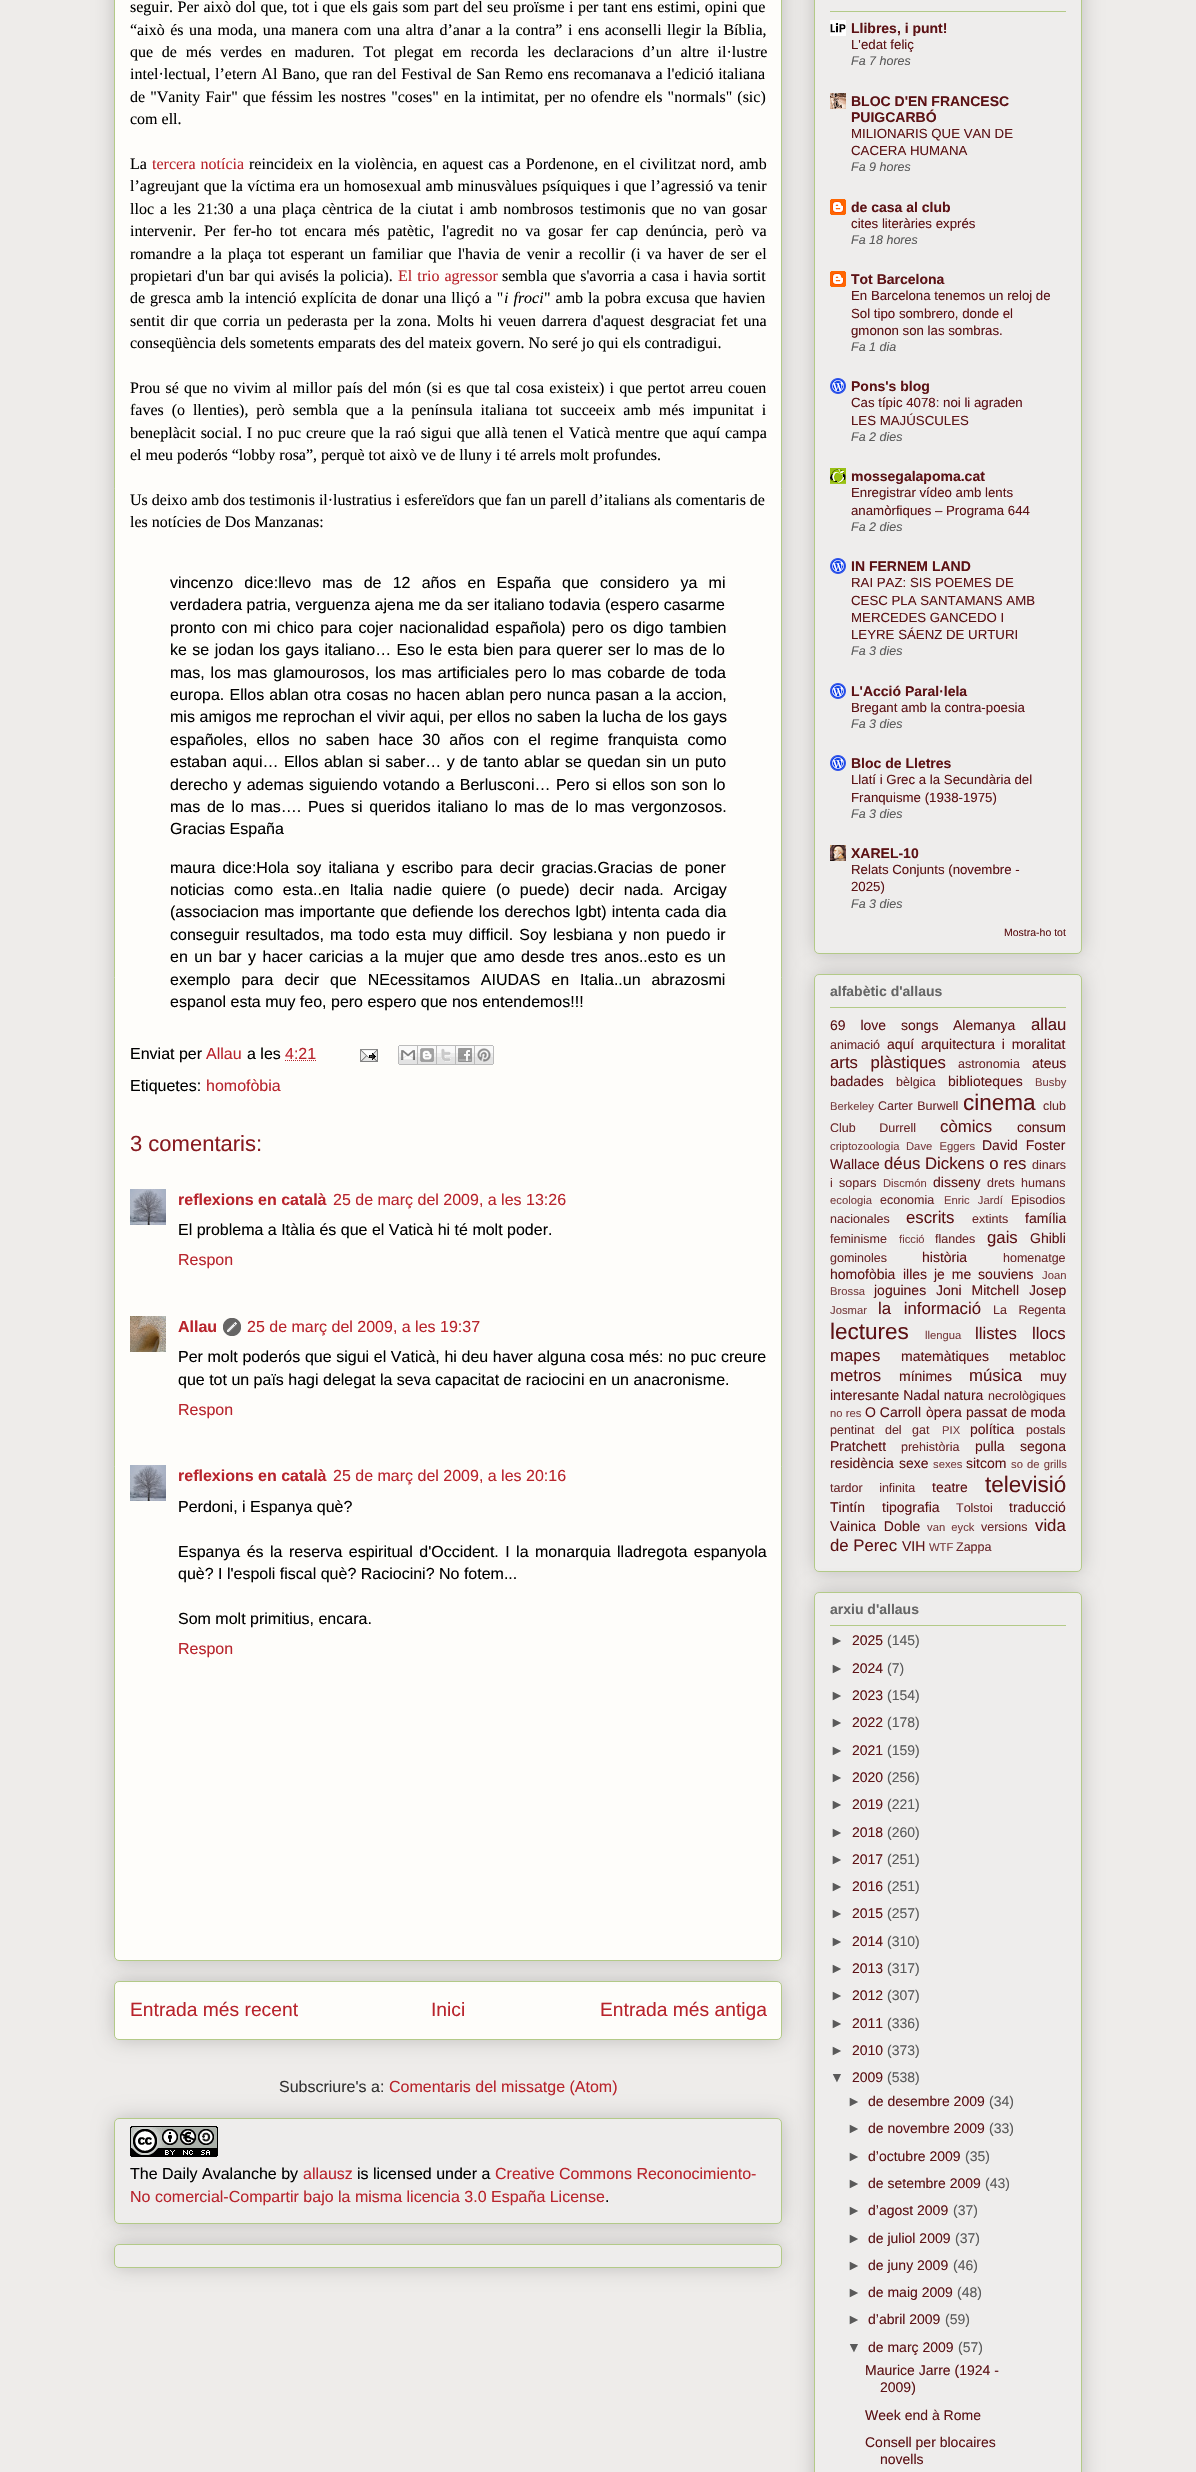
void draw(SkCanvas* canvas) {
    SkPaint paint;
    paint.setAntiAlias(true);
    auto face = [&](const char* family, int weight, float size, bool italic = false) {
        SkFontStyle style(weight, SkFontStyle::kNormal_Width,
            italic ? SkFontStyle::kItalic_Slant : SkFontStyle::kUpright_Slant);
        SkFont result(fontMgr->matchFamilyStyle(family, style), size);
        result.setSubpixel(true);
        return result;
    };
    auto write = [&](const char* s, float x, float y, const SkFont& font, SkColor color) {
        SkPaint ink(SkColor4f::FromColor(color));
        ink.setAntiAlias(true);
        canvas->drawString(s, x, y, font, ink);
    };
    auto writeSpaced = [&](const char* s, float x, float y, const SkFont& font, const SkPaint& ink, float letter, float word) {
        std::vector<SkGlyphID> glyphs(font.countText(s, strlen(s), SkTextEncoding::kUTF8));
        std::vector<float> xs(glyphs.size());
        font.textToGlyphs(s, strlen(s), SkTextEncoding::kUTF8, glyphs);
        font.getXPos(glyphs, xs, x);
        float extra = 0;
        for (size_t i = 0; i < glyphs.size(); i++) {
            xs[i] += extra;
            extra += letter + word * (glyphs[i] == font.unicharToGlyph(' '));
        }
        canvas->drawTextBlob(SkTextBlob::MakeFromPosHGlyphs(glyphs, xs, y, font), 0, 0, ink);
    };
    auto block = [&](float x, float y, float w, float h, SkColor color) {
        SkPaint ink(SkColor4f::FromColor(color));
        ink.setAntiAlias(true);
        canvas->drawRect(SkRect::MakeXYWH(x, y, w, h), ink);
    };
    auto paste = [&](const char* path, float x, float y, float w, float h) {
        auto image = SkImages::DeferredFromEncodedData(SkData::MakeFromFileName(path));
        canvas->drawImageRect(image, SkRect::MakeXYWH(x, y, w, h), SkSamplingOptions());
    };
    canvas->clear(SkColorSetRGB(238, 236, 234));
    paint.setColor(SkColorSetARGB(51, 0, 0, 0));
    paint.setMaskFilter(SkMaskFilter::MakeBlur(kNormal_SkBlurStyle, 10));
    canvas->drawRoundRect(SkRect::MakeXYWH(114, 1981, 668, 59), 5, 5, paint);
    paint.setMaskFilter(nullptr);
    paint.setColor(SkColorSetRGB(254, 253, 250));
    canvas->drawRoundRect(SkRect::MakeXYWH(114.5f, 1981.5f, 667, 58), 4.5f, 4.5f, paint);
    paint.setStyle(SkPaint::kStroke_Style);
    paint.setStrokeWidth(1);
    paint.setColor(SkColorSetRGB(179, 202, 136));
    canvas->drawRoundRect(SkRect::MakeXYWH(114.5f, 1981.5f, 667, 58), 4.5f, 4.5f, paint);
    paint.setStyle(SkPaint::kFill_Style);
    paint.setColor(SkColorSetARGB(51, 0, 0, 0));
    paint.setMaskFilter(SkMaskFilter::MakeBlur(kNormal_SkBlurStyle, 10));
    canvas->drawRoundRect(SkRect::MakeXYWH(114, -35, 668, 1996), 5, 5, paint);
    paint.setMaskFilter(nullptr);
    paint.setColor(SkColorSetRGB(254, 253, 250));
    canvas->drawRoundRect(SkRect::MakeXYWH(114.5f, -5.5f, 667, 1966), 4.5f, 4.5f, paint);
    paint.setStyle(SkPaint::kStroke_Style);
    paint.setColor(SkColorSetRGB(179, 202, 136));
    canvas->drawRoundRect(SkRect::MakeXYWH(114.5f, -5.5f, 667, 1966), 4.5f, 4.5f, paint);
    auto kFont1 = face("Liberation Serif", 400, 16);
    paint.setStyle(SkPaint::kFill_Style);
    paint.setColor(SK_ColorBLACK);
    writeSpaced("seguir. Per això dol que, tot i que els gais som part del seu proïsme i per tant ens estimi, opini que", 130, 12, kFont1, paint, 0, 0.5f);
    writeSpaced("“això és una moda, una manera com una altra d’anar a la contra” i ens aconselli llegir la Bíblia,", 130, 35, kFont1, paint, 0, 1.5f);
    writeSpaced("que de més verdes en maduren. Tot plegat em recorda les declaracions d’un altre il·lustre", 130, 57, kFont1, paint, 0, 4.75f);
    writeSpaced("intel·lectual, l’etern Al Bano, que ran del Festival de San Remo ens recomanava a l'edició italiana", 130, 79, kFont1, paint, 0, 0.6f);
    writeSpaced("de \"Vanity Fair\" que féssim les nostres \"coses\" en la intimitat, per no ofendre els \"normals\" (sic)", 130, 102, kFont1, paint, 0, 1.1f);
    write("com ell.", 130, 124, kFont1, SK_ColorBLACK);
    write("La", 130, 169, kFont1, SK_ColorBLACK);
    paint.setColor(SkColorSetRGB(184, 36, 44));
    writeSpaced("tercera notícia", 152, 169, kFont1, paint, 0, 1);
    paint.setColor(SK_ColorBLACK);
    writeSpaced("reincideix en la violència, en aquest cas a Pordenone, en el civilitzat nord, amb", 249, 169, kFont1, paint, 0, 1);
    writeSpaced("l’agreujant que la víctima era un homosexual amb minusvàlues psíquiques i que l’agressió va tenir", 130, 191, kFont1, paint, 0, 0.4f);
    writeSpaced("lloc a les 21:30 a una plaça cèntrica de la ciutat i amb nombrosos testimonis que no van gosar", 130, 214, kFont1, paint, 0, 2.1f);
    writeSpaced("intervenir. Per fer-ho tot encara més patètic, l'agredit no va gosar fer cap denúncia, però va", 130, 236, kFont1, paint, 0, 3.75f);
    writeSpaced("romandre a la plaça tot esperant un familiar que l'havia de venir a recollir (i va haver de ser el", 130, 259, kFont1, paint, 0, 2);
    writeSpaced("propietari d'un bar qui avisés la policia).", 130, 281, kFont1, paint, 0, 0.9f);
    paint.setColor(SkColorSetRGB(184, 36, 44));
    writeSpaced("El trio agressor", 398, 281, kFont1, paint, 0, 1);
    paint.setColor(SK_ColorBLACK);
    writeSpaced("sembla que s'avorria a casa i havia sortit", 502, 281, kFont1, paint, 0, 0.9f);
    writeSpaced("de gresca amb la intenció explícita de donar una lliçó a \"", 130, 303, kFont1, paint, 0, 1);
    auto kFont2 = face("Liberation Serif", 400, 16, true);
    writeSpaced("i froci", 504, 303, kFont2, paint, 0, 1);
    writeSpaced("\" amb la pobra excusa que havien", 544, 303, kFont1, paint, 0, 1);
    writeSpaced("sentit dir que corria un pederasta per la zona. Molts hi veuen darrera d'aquest desgraciat fet una", 130, 326, kFont1, paint, 0, 1.7f);
    write("conseqüència dels sometents emparats des del mateix govern. No seré jo qui els contradigui.", 130, 348, kFont1, SK_ColorBLACK);
    writeSpaced("Prou sé que no vivim al millor país del món (si es que tal cosa existeix) i que pertot arreu couen", 130, 393, kFont1, paint, 0, 1.2f);
    writeSpaced("faves (o llenties), però sembla que a la península italiana tot succeeix amb més impunitat i", 130, 415, kFont1, paint, 0, 3.9f);
    writeSpaced("beneplàcit social. I no puc creure que la raó sigui que allà tenen el Vaticà mentre que aquí campa", 130, 438, kFont1, paint, 0, 0.9f);
    write("el meu poderós “lobby rosa”, perquè tot això ve de lluny i té arrels molt profundes.", 130, 460, kFont1, SK_ColorBLACK);
    write("Us deixo amb dos testimonis il·lustratius i esfereïdors que fan un parell d’italians als comentaris de", 130, 505, kFont1, SK_ColorBLACK);
    write("les notícies de Dos Manzanas:", 130, 527, kFont1, SK_ColorBLACK);
    auto kFont3 = face("Liberation Sans", 400, 16);
    writeSpaced("vincenzo dice:llevo mas de 12 años en España que considero ya mi", 170, 588, kFont3, paint, 0, 6.75f);
    write("verdadera patria, verguenza ajena me da ser italiano todavia (espero casarme", 170, 610, kFont3, SK_ColorBLACK);
    writeSpaced("pronto con mi chico para cojer nacionalidad española) pero os digo tambien", 170, 633, kFont3, paint, 0, 1.75f);
    writeSpaced("ke se jodan los gays italiano… Eso le esta bien para querer ser lo mas de lo", 170, 655, kFont3, paint, 0, 1);
    writeSpaced("mas, los mas glamourosos, los mas artificiales pero lo mas cobarde de toda", 170, 678, kFont3, paint, 0, 1.5f);
    writeSpaced("europa. Ellos ablan otra cosas no hacen ablan pero nunca pasan a la accion,", 170, 700, kFont3, paint, 0, 0.75f);
    writeSpaced("mis amigos me reprochan el vivir aqui, per ellos no saben la lucha de los gays", 170, 722, kFont3, paint, 0, 0.25f);
    writeSpaced("españoles, ellos no saben hace 30 años con el regime franquista como", 170, 745, kFont3, paint, 0, 4.75f);
    writeSpaced("estaban aqui… Ellos ablan si saber… y de tanto ablar se quedan sin un puto", 170, 767, kFont3, paint, 0, 0.9f);
    writeSpaced("derecho y ademas siguiendo votando a Berlusconi… Pero si ellos son son lo", 170, 790, kFont3, paint, 0, 1);
    writeSpaced("mas de lo mas…. Pues si queridos italiano lo mas de lo mas vergonzosos.", 170, 812, kFont3, paint, 0, 2.25f);
    write("Gracias España", 170, 834, kFont3, SK_ColorBLACK);
    writeSpaced("maura dice:Hola soy italiana y escribo para decir gracias.Gracias de poner", 170, 873, kFont3, paint, 0, 2.75f);
    writeSpaced("noticias como esta..en Italia nadie quiere (o puede) decir nada. Arcigay", 170, 895, kFont3, paint, 0, 5.25f);
    writeSpaced("(associacion mas importante que defiende los derechos lgbt) intenta cada dia", 170, 917, kFont3, paint, 0, 0.75f);
    writeSpaced("conseguir resultados, ma todo esta muy difficil. Soy lesbiana y non puedo ir", 170, 940, kFont3, paint, 0, 1.75f);
    writeSpaced("en un bar y hacer caricias a la mujer que amo desde tres anos..esto es un", 170, 962, kFont3, paint, 0, 2);
    writeSpaced("exemplo para decir que NEcessitamos AIUDAS en Italia..un abrazosmi", 170, 985, kFont3, paint, 0, 6.5f);
    write("espanol esta muy feo, pero espero que nos entendemos!!!", 170, 1007, kFont3, SK_ColorBLACK);
    write("Enviat per", 130, 1059, kFont3, SK_ColorBLACK);
    write("Allau", 206, 1059, kFont3, SkColorSetRGB(184, 36, 44));
    write("a les", 247, 1059, kFont3, SK_ColorBLACK);
    write("4:21", 285, 1059, kFont3, SkColorSetRGB(184, 36, 44));
    paint.setStyle(SkPaint::kStroke_Style);
    paint.setColor(SkColorSetRGB(184, 36, 44));
    paint.setPathEffect(SkDashPathEffect::Make({{1, 1}}, 0));
    canvas->drawPath(SkPathBuilder().moveTo(285, 1060.5f).lineTo(316, 1060.5f).detach(), paint);
    paint.setPathEffect(nullptr);
    paste("pic1.png", 360, 1049, 18, 13);
    paste("pic2.png", 398, 1045, 20, 20);
    paste("pic3.png", 418, 1045, 19, 20);
    paste("pic4.png", 437, 1045, 19, 20);
    paste("pic5.png", 456, 1045, 19, 20);
    paste("pic6.png", 475, 1045, 19, 20);
    write("Etiquetes:", 130, 1091, kFont3, SK_ColorBLACK);
    write("homofòbia", 206, 1091, kFont3, SkColorSetRGB(184, 36, 44));
    auto kFont4 = face("Liberation Sans", 400, 22);
    write("3 comentaris:", 130, 1151, kFont4, SkColorSetRGB(136, 27, 33));
    paste("pic7.png", 130, 1189, 36, 36);
    auto kFont5 = face("Liberation Sans", 700, 16);
    write("reflexions en català", 178, 1205, kFont5, SkColorSetRGB(184, 36, 44));
    write("25 de març del 2009, a les 13:26", 333, 1205, kFont3, SkColorSetRGB(184, 36, 44));
    write("El problema a Itàlia és que el Vaticà hi té molt poder.", 178, 1235, kFont3, SK_ColorBLACK);
    write("Respon", 178, 1265, kFont3, SkColorSetRGB(184, 36, 44));
    paste("pic8.png", 130, 1316, 36, 36);
    write("Allau", 178, 1332, kFont5, SkColorSetRGB(184, 36, 44));
    paste("pic9.png", 223, 1318, 18, 18);
    write("25 de març del 2009, a les 19:37", 247, 1332, kFont3, SkColorSetRGB(184, 36, 44));
    paint.setStyle(SkPaint::kFill_Style);
    paint.setColor(SK_ColorBLACK);
    writeSpaced("Per molt poderós que sigui el Vaticà, hi deu haver alguna cosa més: no puc creure", 178, 1362, kFont3, paint, 0, 0.2f);
    write("que tot un païs hagi delegat la seva capacitat de raciocini en un anacronisme.", 178, 1385, kFont3, SK_ColorBLACK);
    write("Respon", 178, 1415, kFont3, SkColorSetRGB(184, 36, 44));
    paste("pic7.png", 130, 1465, 36, 36);
    write("reflexions en català", 178, 1481, kFont5, SkColorSetRGB(184, 36, 44));
    write("25 de març del 2009, a les 20:16", 333, 1481, kFont3, SkColorSetRGB(184, 36, 44));
    write("Perdoni, i Espanya què?", 178, 1512, kFont3, SK_ColorBLACK);
    writeSpaced("Espanya és la reserva espiritual d'Occident. I la monarquia lladregota espanyola", 178, 1557, kFont3, paint, 0, 2);
    write("què? I l'espoli fiscal què? Raciocini? No fotem...", 178, 1579, kFont3, SK_ColorBLACK);
    write("Som molt primitius, encara.", 178, 1624, kFont3, SK_ColorBLACK);
    write("Respon", 178, 1654, kFont3, SkColorSetRGB(184, 36, 44));
    auto kFont6 = face("Liberation Sans", 400, 19.25f);
    write("Entrada més recent", 130, 2016, kFont6, SkColorSetRGB(184, 36, 44));
    write("Inici", 431, 2016, kFont6, SkColorSetRGB(184, 36, 44));
    write("Entrada més antiga", 600, 2016, kFont6, SkColorSetRGB(184, 36, 44));
    write("Subscriure's a:", 279, 2092, kFont3, SkColorSetRGB(51, 51, 51));
    write("Comentaris del missatge (Atom)", 389, 2092, kFont3, SkColorSetRGB(184, 36, 44));
    paint.setColor(SkColorSetARGB(51, 0, 0, 0));
    paint.setMaskFilter(SkMaskFilter::MakeBlur(kNormal_SkBlurStyle, 10));
    canvas->drawRoundRect(SkRect::MakeXYWH(114, 2118, 668, 106), 5, 5, paint);
    paint.setMaskFilter(nullptr);
    paint.setColor(SkColorSetRGB(238, 237, 236));
    canvas->drawRoundRect(SkRect::MakeXYWH(114.5f, 2118.5f, 667, 105), 4.5f, 4.5f, paint);
    paint.setStyle(SkPaint::kStroke_Style);
    paint.setColor(SkColorSetRGB(179, 202, 136));
    canvas->drawRoundRect(SkRect::MakeXYWH(114.5f, 2118.5f, 667, 105), 4.5f, 4.5f, paint);
    paste("pic10.png", 130, 2126, 88, 31);
    write("The Daily Avalanche by", 130, 2179, kFont3, SK_ColorBLACK);
    write("allausz", 303, 2179, kFont3, SkColorSetRGB(184, 36, 44));
    write("is licensed under a", 357, 2179, kFont3, SK_ColorBLACK);
    write("Creative Commons Reconocimiento-", 495, 2179, kFont3, SkColorSetRGB(184, 36, 44));
    write("No comercial-Compartir bajo la misma licencia 3.0 España License", 130, 2202, kFont3, SkColorSetRGB(184, 36, 44));
    write(".", 605, 2202, kFont3, SK_ColorBLACK);
    paint.setStyle(SkPaint::kFill_Style);
    paint.setColor(SkColorSetARGB(51, 0, 0, 0));
    paint.setMaskFilter(SkMaskFilter::MakeBlur(kNormal_SkBlurStyle, 10));
    canvas->drawRoundRect(SkRect::MakeXYWH(114, 2244, 668, 24), 5, 5, paint);
    paint.setMaskFilter(nullptr);
    paint.setColor(SkColorSetRGB(238, 237, 236));
    canvas->drawRoundRect(SkRect::MakeXYWH(114.5f, 2244.5f, 667, 23), 4.5f, 4.5f, paint);
    paint.setStyle(SkPaint::kStroke_Style);
    paint.setColor(SkColorSetRGB(179, 202, 136));
    canvas->drawRoundRect(SkRect::MakeXYWH(114.5f, 2244.5f, 667, 23), 4.5f, 4.5f, paint);
    paint.setStyle(SkPaint::kFill_Style);
    paint.setColor(SkColorSetARGB(51, 0, 0, 0));
    paint.setMaskFilter(SkMaskFilter::MakeBlur(kNormal_SkBlurStyle, 10));
    canvas->drawRoundRect(SkRect::MakeXYWH(814, -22, 268, 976), 5, 5, paint);
    paint.setMaskFilter(nullptr);
    paint.setColor(SkColorSetRGB(238, 237, 236));
    canvas->drawRoundRect(SkRect::MakeXYWH(814.5f, -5.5f, 267, 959), 4.5f, 4.5f, paint);
    paint.setStyle(SkPaint::kStroke_Style);
    paint.setColor(SkColorSetRGB(179, 202, 136));
    canvas->drawRoundRect(SkRect::MakeXYWH(814.5f, -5.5f, 267, 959), 4.5f, 4.5f, paint);
    block(830, 11, 236, 1, SkColorSetRGB(179, 202, 136));
    paste("pic11.png", 830, 20, 16, 16);
    auto kFont7 = face("Liberation Sans", 700, 14);
    write("Llibres, i punt!", 851, 33, kFont7, SkColorSetRGB(92, 18, 21));
    auto kFont8 = face("Liberation Sans", 400, 13.25f);
    write("L'edat feliç", 851, 49, kFont8, SkColorSetRGB(92, 18, 21));
    auto kFont9 = face("Liberation Sans", 400, 12.5f, true);
    write("Fa 7 hores", 851, 65, kFont9, SkColorSetRGB(90, 90, 90));
    paste("pic12.png", 830, 93, 16, 16);
    write("BLOC D'EN FRANCESC", 851, 106, kFont7, SkColorSetRGB(92, 18, 21));
    write("PUIGCARBÓ", 851, 122, kFont7, SkColorSetRGB(92, 18, 21));
    write("MILIONARIS QUE VAN DE", 851, 138, kFont8, SkColorSetRGB(92, 18, 21));
    write("CACERA HUMANA", 851, 155, kFont8, SkColorSetRGB(92, 18, 21));
    write("Fa 9 hores", 851, 171, kFont9, SkColorSetRGB(90, 90, 90));
    paste("pic13.png", 830, 199, 16, 16);
    write("de casa al club", 851, 212, kFont7, SkColorSetRGB(92, 18, 21));
    write("cites literàries exprés", 851, 228, kFont8, SkColorSetRGB(92, 18, 21));
    write("Fa 18 hores", 851, 244, kFont9, SkColorSetRGB(90, 90, 90));
    paste("pic13.png", 830, 271, 16, 16);
    write("Tot Barcelona", 851, 284, kFont7, SkColorSetRGB(92, 18, 21));
    write("En Barcelona tenemos un reloj de", 851, 300, kFont8, SkColorSetRGB(92, 18, 21));
    write("Sol tipo sombrero, donde el", 851, 318, kFont8, SkColorSetRGB(92, 18, 21));
    write("gmonon son las sombras.", 851, 335, kFont8, SkColorSetRGB(92, 18, 21));
    write("Fa 1 dia", 851, 351, kFont9, SkColorSetRGB(90, 90, 90));
    paste("pic14.png", 830, 378, 16, 16);
    write("Pons's blog", 851, 391, kFont7, SkColorSetRGB(92, 18, 21));
    write("Cas típic 4078: noi li agraden", 851, 407, kFont8, SkColorSetRGB(92, 18, 21));
    write("LES MAJÚSCULES", 851, 425, kFont8, SkColorSetRGB(92, 18, 21));
    write("Fa 2 dies", 851, 441, kFont9, SkColorSetRGB(90, 90, 90));
    paste("pic15.png", 830, 468, 16, 16);
    write("mossegalapoma.cat", 851, 481, kFont7, SkColorSetRGB(92, 18, 21));
    write("Enregistrar vídeo amb lents", 851, 497, kFont8, SkColorSetRGB(92, 18, 21));
    write("anamòrfiques – Programa 644", 851, 515, kFont8, SkColorSetRGB(92, 18, 21));
    write("Fa 2 dies", 851, 531, kFont9, SkColorSetRGB(90, 90, 90));
    paste("pic14.png", 830, 558, 16, 16);
    write("IN FERNEM LAND", 851, 571, kFont7, SkColorSetRGB(92, 18, 21));
    write("RAI PAZ: SIS POEMES DE", 851, 587, kFont8, SkColorSetRGB(92, 18, 21));
    write("CESC PLA SANTAMANS AMB", 851, 605, kFont8, SkColorSetRGB(92, 18, 21));
    write("MERCEDES GANCEDO I", 851, 622, kFont8, SkColorSetRGB(92, 18, 21));
    write("LEYRE SÁENZ DE URTURI", 851, 639, kFont8, SkColorSetRGB(92, 18, 21));
    write("Fa 3 dies", 851, 655, kFont9, SkColorSetRGB(90, 90, 90));
    paste("pic14.png", 830, 683, 16, 16);
    write("L'Acció Paral·lela", 851, 696, kFont7, SkColorSetRGB(92, 18, 21));
    write("Bregant amb la contra-poesia", 851, 712, kFont8, SkColorSetRGB(92, 18, 21));
    write("Fa 3 dies", 851, 728, kFont9, SkColorSetRGB(90, 90, 90));
    paste("pic14.png", 830, 755, 16, 16);
    write("Bloc de Lletres", 851, 768, kFont7, SkColorSetRGB(92, 18, 21));
    write("Llatí i Grec a la Secundària del", 851, 784, kFont8, SkColorSetRGB(92, 18, 21));
    write("Franquisme (1938-1975)", 851, 802, kFont8, SkColorSetRGB(92, 18, 21));
    write("Fa 3 dies", 851, 818, kFont9, SkColorSetRGB(90, 90, 90));
    paste("pic16.png", 830, 845, 16, 16);
    write("XAREL-10", 851, 858, kFont7, SkColorSetRGB(92, 18, 21));
    write("Relats Conjunts (novembre -", 851, 874, kFont8, SkColorSetRGB(92, 18, 21));
    write("2025)", 851, 891, kFont8, SkColorSetRGB(92, 18, 21));
    write("Fa 3 dies", 851, 908, kFont9, SkColorSetRGB(90, 90, 90));
    auto kFont10 = face("Liberation Sans", 400, 10.5f);
    write("Mostra-ho tot", 1004, 936, kFont10, SkColorSetRGB(92, 18, 21));
    paint.setStyle(SkPaint::kFill_Style);
    paint.setColor(SkColorSetARGB(51, 0, 0, 0));
    paint.setMaskFilter(SkMaskFilter::MakeBlur(kNormal_SkBlurStyle, 10));
    canvas->drawRoundRect(SkRect::MakeXYWH(814, 974, 268, 598), 5, 5, paint);
    paint.setMaskFilter(nullptr);
    paint.setColor(SkColorSetRGB(238, 237, 236));
    canvas->drawRoundRect(SkRect::MakeXYWH(814.5f, 974.5f, 267, 597), 4.5f, 4.5f, paint);
    paint.setStyle(SkPaint::kStroke_Style);
    paint.setColor(SkColorSetRGB(179, 202, 136));
    canvas->drawRoundRect(SkRect::MakeXYWH(814.5f, 974.5f, 267, 597), 4.5f, 4.5f, paint);
    write("alfabètic d'allaus", 830, 996, kFont7, SkColorSetRGB(102, 102, 102));
    block(830, 1007, 236, 1, SkColorSetRGB(179, 202, 136));
    auto kFont11 = face("Liberation Sans", 400, 14);
    paint.setStyle(SkPaint::kFill_Style);
    paint.setColor(SkColorSetRGB(92, 18, 21));
    writeSpaced("69 love songs", 830, 1030, kFont11, paint, 0, 11);
    write("Alemanya", 953, 1030, kFont11, SkColorSetRGB(92, 18, 21));
    auto kFont12 = face("Liberation Sans", 400, 16.75f);
    write("allau", 1031, 1030, kFont12, SkColorSetRGB(92, 18, 21));
    auto kFont13 = face("Liberation Sans", 400, 12.5f);
    write("animació", 830, 1049, kFont13, SkColorSetRGB(107, 40, 43));
    write("aquí", 887, 1049, kFont11, SkColorSetRGB(92, 18, 21));
    writeSpaced("arquitectura i moralitat", 921, 1049, kFont11, paint, 0, 3);
    writeSpaced("arts plàstiques", 830, 1068, kFont12, paint, 0, 8);
    write("astronomia", 958, 1068, kFont13, SkColorSetRGB(107, 40, 43));
    write("ateus", 1032, 1068, kFont11, SkColorSetRGB(92, 18, 21));
    write("badades", 830, 1086, kFont11, SkColorSetRGB(92, 18, 21));
    write("bèlgica", 896, 1086, kFont13, SkColorSetRGB(107, 40, 43));
    write("biblioteques", 948, 1086, kFont11, SkColorSetRGB(92, 18, 21));
    auto kFont14 = face("Liberation Sans", 400, 11.25f);
    write("Busby", 1035, 1086, kFont14, SkColorSetRGB(121, 62, 64));
    write("Berkeley", 830, 1110, kFont14, SkColorSetRGB(121, 62, 64));
    paint.setColor(SkColorSetRGB(107, 40, 43));
    writeSpaced("Carter Burwell", 878, 1110, kFont13, paint, 0, 1);
    auto kFont15 = face("Liberation Sans", 400, 22.5f);
    write("cinema", 963, 1110, kFont15, SkColorSetRGB(92, 18, 21));
    write("club", 1043, 1110, kFont13, SkColorSetRGB(107, 40, 43));
    writeSpaced("Club Durrell", 830, 1132, kFont13, paint, 0, 20);
    write("còmics", 940, 1132, kFont12, SkColorSetRGB(92, 18, 21));
    write("consum", 1017, 1132, kFont11, SkColorSetRGB(92, 18, 21));
    write("criptozoologia", 830, 1150, kFont14, SkColorSetRGB(121, 62, 64));
    paint.setColor(SkColorSetRGB(121, 62, 64));
    writeSpaced("Dave Eggers", 906, 1150, kFont14, paint, 0, 4);
    paint.setColor(SkColorSetRGB(92, 18, 21));
    writeSpaced("David Foster", 982, 1150, kFont11, paint, 0, 4);
    write("Wallace", 830, 1169, kFont11, SkColorSetRGB(92, 18, 21));
    write("déus Dickens o res", 884, 1169, kFont12, SkColorSetRGB(92, 18, 21));
    write("dinars", 1032, 1169, kFont13, SkColorSetRGB(107, 40, 43));
    paint.setColor(SkColorSetRGB(107, 40, 43));
    writeSpaced("i sopars", 830, 1187, kFont13, paint, 0, 2.75f);
    write("Discmón", 883, 1187, kFont14, SkColorSetRGB(121, 62, 64));
    write("disseny", 933, 1187, kFont11, SkColorSetRGB(92, 18, 21));
    writeSpaced("drets humans", 987, 1187, kFont13, paint, 0, 2.75f);
    write("ecologia", 830, 1204, kFont14, SkColorSetRGB(121, 62, 64));
    write("economia", 880, 1204, kFont13, SkColorSetRGB(107, 40, 43));
    paint.setColor(SkColorSetRGB(121, 62, 64));
    writeSpaced("Enric Jardí", 944, 1204, kFont14, paint, 0, 5);
    write("Episodios", 1011, 1204, kFont13, SkColorSetRGB(107, 40, 43));
    write("nacionales", 830, 1223, kFont13, SkColorSetRGB(107, 40, 43));
    write("escrits", 906, 1223, kFont12, SkColorSetRGB(92, 18, 21));
    write("extints", 972, 1223, kFont13, SkColorSetRGB(107, 40, 43));
    write("família", 1025, 1223, kFont11, SkColorSetRGB(92, 18, 21));
    write("feminisme", 830, 1243, kFont13, SkColorSetRGB(107, 40, 43));
    write("ficció", 899, 1243, kFont14, SkColorSetRGB(121, 62, 64));
    write("flandes", 935, 1243, kFont13, SkColorSetRGB(107, 40, 43));
    write("gais", 987, 1243, kFont12, SkColorSetRGB(92, 18, 21));
    write("Ghibli", 1030, 1243, kFont11, SkColorSetRGB(92, 18, 21));
    write("gominoles", 830, 1262, kFont13, SkColorSetRGB(107, 40, 43));
    write("història", 922, 1262, kFont11, SkColorSetRGB(92, 18, 21));
    write("homenatge", 1003, 1262, kFont13, SkColorSetRGB(107, 40, 43));
    write("homofòbia", 830, 1279, kFont11, SkColorSetRGB(92, 18, 21));
    write("illes", 903, 1279, kFont11, SkColorSetRGB(92, 18, 21));
    paint.setColor(SkColorSetRGB(92, 18, 21));
    writeSpaced("je me souviens", 934, 1279, kFont11, paint, 0, 3);
    write("Joan", 1042, 1279, kFont14, SkColorSetRGB(121, 62, 64));
    write("Brossa", 830, 1295, kFont14, SkColorSetRGB(121, 62, 64));
    write("joguines", 874, 1295, kFont11, SkColorSetRGB(92, 18, 21));
    writeSpaced("Joni Mitchell", 936, 1295, kFont11, paint, 0, 6);
    write("Josep", 1029, 1295, kFont11, SkColorSetRGB(92, 18, 21));
    write("Josmar", 830, 1314, kFont14, SkColorSetRGB(121, 62, 64));
    writeSpaced("la informació", 878, 1314, kFont12, paint, 0, 8);
    paint.setColor(SkColorSetRGB(107, 40, 43));
    writeSpaced("La Regenta", 993, 1314, kFont13, paint, 0, 8);
    write("lectures", 830, 1339, kFont15, SkColorSetRGB(92, 18, 21));
    write("llengua", 925, 1339, kFont14, SkColorSetRGB(121, 62, 64));
    write("llistes", 975, 1339, kFont12, SkColorSetRGB(92, 18, 21));
    write("llocs", 1032, 1339, kFont12, SkColorSetRGB(92, 18, 21));
    write("mapes", 830, 1361, kFont12, SkColorSetRGB(92, 18, 21));
    write("matemàtiques", 901, 1361, kFont11, SkColorSetRGB(92, 18, 21));
    write("metabloc", 1009, 1361, kFont11, SkColorSetRGB(92, 18, 21));
    write("metros", 830, 1381, kFont12, SkColorSetRGB(92, 18, 21));
    write("mínimes", 899, 1381, kFont11, SkColorSetRGB(92, 18, 21));
    write("música", 969, 1381, kFont12, SkColorSetRGB(92, 18, 21));
    write("muy", 1040, 1381, kFont11, SkColorSetRGB(92, 18, 21));
    write("interesante Nadal natura", 830, 1400, kFont11, SkColorSetRGB(92, 18, 21));
    write("necrològiques", 988, 1400, kFont13, SkColorSetRGB(107, 40, 43));
    write("no res", 830, 1417, kFont14, SkColorSetRGB(121, 62, 64));
    write("O Carroll", 865, 1417, kFont11, SkColorSetRGB(92, 18, 21));
    write("òpera", 926, 1417, kFont11, SkColorSetRGB(92, 18, 21));
    write("passat de moda", 966, 1417, kFont11, SkColorSetRGB(92, 18, 21));
    writeSpaced("pentinat del gat", 830, 1434, kFont13, paint, 0, 7);
    write("PIX", 942, 1434, kFont14, SkColorSetRGB(121, 62, 64));
    write("política", 970, 1434, kFont11, SkColorSetRGB(92, 18, 21));
    write("postals", 1026, 1434, kFont13, SkColorSetRGB(107, 40, 43));
    write("Pratchett", 830, 1451, kFont11, SkColorSetRGB(92, 18, 21));
    write("prehistòria", 901, 1451, kFont13, SkColorSetRGB(107, 40, 43));
    write("pulla", 975, 1451, kFont11, SkColorSetRGB(92, 18, 21));
    write("segona", 1020, 1451, kFont11, SkColorSetRGB(92, 18, 21));
    write("residència", 830, 1468, kFont11, SkColorSetRGB(92, 18, 21));
    write("sexe", 899, 1468, kFont11, SkColorSetRGB(92, 18, 21));
    write("sexes", 933, 1468, kFont14, SkColorSetRGB(121, 62, 64));
    write("sitcom", 966, 1468, kFont11, SkColorSetRGB(92, 18, 21));
    paint.setColor(SkColorSetRGB(121, 62, 64));
    writeSpaced("so de grills", 1011, 1468, kFont14, paint, 0, 1);
    paint.setColor(SkColorSetRGB(107, 40, 43));
    writeSpaced("tardor infinita", 830, 1492, kFont13, paint, 0, 13);
    write("teatre", 932, 1492, kFont11, SkColorSetRGB(92, 18, 21));
    write("televisió", 985, 1492, kFont15, SkColorSetRGB(92, 18, 21));
    write("Tintín", 830, 1512, kFont11, SkColorSetRGB(92, 18, 21));
    write("tipografia", 882, 1512, kFont11, SkColorSetRGB(92, 18, 21));
    write("Tolstoi", 956, 1512, kFont13, SkColorSetRGB(107, 40, 43));
    write("traducció", 1009, 1512, kFont11, SkColorSetRGB(92, 18, 21));
    paint.setColor(SkColorSetRGB(92, 18, 21));
    writeSpaced("Vainica Doble", 830, 1531, kFont11, paint, 0, 4);
    paint.setColor(SkColorSetRGB(121, 62, 64));
    writeSpaced("van eyck", 927, 1531, kFont14, paint, 0, 3);
    write("versions", 981, 1531, kFont13, SkColorSetRGB(107, 40, 43));
    write("vida", 1035, 1531, kFont12, SkColorSetRGB(92, 18, 21));
    write("de Perec", 830, 1551, kFont12, SkColorSetRGB(92, 18, 21));
    write("VIH", 902, 1551, kFont11, SkColorSetRGB(92, 18, 21));
    write("WTF", 929, 1551, kFont14, SkColorSetRGB(121, 62, 64));
    write("Zappa", 956, 1551, kFont13, SkColorSetRGB(107, 40, 43));
    paint.setColor(SkColorSetARGB(51, 0, 0, 0));
    paint.setMaskFilter(SkMaskFilter::MakeBlur(kNormal_SkBlurStyle, 10));
    canvas->drawRoundRect(SkRect::MakeXYWH(814, 1592, 268, 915), 5, 5, paint);
    paint.setMaskFilter(nullptr);
    paint.setColor(SkColorSetRGB(238, 237, 236));
    canvas->drawRoundRect(SkRect::MakeXYWH(814.5f, 1592.5f, 267, 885), 4.5f, 4.5f, paint);
    paint.setStyle(SkPaint::kStroke_Style);
    paint.setColor(SkColorSetRGB(179, 202, 136));
    canvas->drawRoundRect(SkRect::MakeXYWH(814.5f, 1592.5f, 267, 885), 4.5f, 4.5f, paint);
    write("arxiu d'allaus", 830, 1614, kFont7, SkColorSetRGB(102, 102, 102));
    block(830, 1625, 236, 1, SkColorSetRGB(179, 202, 136));
    write("►", 830, 1645, kFont11, SkColorSetRGB(90, 90, 90));
    write("2025", 852, 1645, kFont11, SkColorSetRGB(92, 18, 21));
    write("(145)", 887, 1645, kFont11, SkColorSetRGB(90, 90, 90));
    write("►", 830, 1673, kFont11, SkColorSetRGB(90, 90, 90));
    write("2024", 852, 1673, kFont11, SkColorSetRGB(92, 18, 21));
    write("(7)", 887, 1673, kFont11, SkColorSetRGB(90, 90, 90));
    write("►", 830, 1700, kFont11, SkColorSetRGB(90, 90, 90));
    write("2023", 852, 1700, kFont11, SkColorSetRGB(92, 18, 21));
    write("(154)", 887, 1700, kFont11, SkColorSetRGB(90, 90, 90));
    write("►", 830, 1727, kFont11, SkColorSetRGB(90, 90, 90));
    write("2022", 852, 1727, kFont11, SkColorSetRGB(92, 18, 21));
    write("(178)", 887, 1727, kFont11, SkColorSetRGB(90, 90, 90));
    write("►", 830, 1755, kFont11, SkColorSetRGB(90, 90, 90));
    write("2021", 852, 1755, kFont11, SkColorSetRGB(92, 18, 21));
    write("(159)", 887, 1755, kFont11, SkColorSetRGB(90, 90, 90));
    write("►", 830, 1782, kFont11, SkColorSetRGB(90, 90, 90));
    write("2020", 852, 1782, kFont11, SkColorSetRGB(92, 18, 21));
    write("(256)", 887, 1782, kFont11, SkColorSetRGB(90, 90, 90));
    write("►", 830, 1809, kFont11, SkColorSetRGB(90, 90, 90));
    write("2019", 852, 1809, kFont11, SkColorSetRGB(92, 18, 21));
    write("(221)", 887, 1809, kFont11, SkColorSetRGB(90, 90, 90));
    write("►", 830, 1837, kFont11, SkColorSetRGB(90, 90, 90));
    write("2018", 852, 1837, kFont11, SkColorSetRGB(92, 18, 21));
    write("(260)", 887, 1837, kFont11, SkColorSetRGB(90, 90, 90));
    write("►", 830, 1864, kFont11, SkColorSetRGB(90, 90, 90));
    write("2017", 852, 1864, kFont11, SkColorSetRGB(92, 18, 21));
    write("(251)", 887, 1864, kFont11, SkColorSetRGB(90, 90, 90));
    write("►", 830, 1891, kFont11, SkColorSetRGB(90, 90, 90));
    write("2016", 852, 1891, kFont11, SkColorSetRGB(92, 18, 21));
    write("(251)", 887, 1891, kFont11, SkColorSetRGB(90, 90, 90));
    write("►", 830, 1918, kFont11, SkColorSetRGB(90, 90, 90));
    write("2015", 852, 1918, kFont11, SkColorSetRGB(92, 18, 21));
    write("(257)", 887, 1918, kFont11, SkColorSetRGB(90, 90, 90));
    write("►", 830, 1946, kFont11, SkColorSetRGB(90, 90, 90));
    write("2014", 852, 1946, kFont11, SkColorSetRGB(92, 18, 21));
    write("(310)", 887, 1946, kFont11, SkColorSetRGB(90, 90, 90));
    write("►", 830, 1973, kFont11, SkColorSetRGB(90, 90, 90));
    write("2013", 852, 1973, kFont11, SkColorSetRGB(92, 18, 21));
    write("(317)", 887, 1973, kFont11, SkColorSetRGB(90, 90, 90));
    write("►", 830, 2000, kFont11, SkColorSetRGB(90, 90, 90));
    write("2012", 852, 2000, kFont11, SkColorSetRGB(92, 18, 21));
    write("(307)", 887, 2000, kFont11, SkColorSetRGB(90, 90, 90));
    write("►", 830, 2028, kFont11, SkColorSetRGB(90, 90, 90));
    write("2011", 852, 2028, kFont11, SkColorSetRGB(92, 18, 21));
    write("(336)", 887, 2028, kFont11, SkColorSetRGB(90, 90, 90));
    write("►", 830, 2055, kFont11, SkColorSetRGB(90, 90, 90));
    write("2010", 852, 2055, kFont11, SkColorSetRGB(92, 18, 21));
    write("(373)", 887, 2055, kFont11, SkColorSetRGB(90, 90, 90));
    write("▼", 830, 2082, kFont11, SkColorSetRGB(90, 90, 90));
    write("2009", 852, 2082, kFont11, SkColorSetRGB(92, 18, 21));
    write("(538)", 887, 2082, kFont11, SkColorSetRGB(90, 90, 90));
    write("►", 847, 2106, kFont11, SkColorSetRGB(90, 90, 90));
    write("de desembre 2009", 868, 2106, kFont11, SkColorSetRGB(92, 18, 21));
    write("(34)", 989, 2106, kFont11, SkColorSetRGB(90, 90, 90));
    write("►", 847, 2133, kFont11, SkColorSetRGB(90, 90, 90));
    write("de novembre 2009", 868, 2133, kFont11, SkColorSetRGB(92, 18, 21));
    write("(33)", 989, 2133, kFont11, SkColorSetRGB(90, 90, 90));
    write("►", 847, 2161, kFont11, SkColorSetRGB(90, 90, 90));
    write("d’octubre 2009", 868, 2161, kFont11, SkColorSetRGB(92, 18, 21));
    write("(35)", 965, 2161, kFont11, SkColorSetRGB(90, 90, 90));
    write("►", 847, 2188, kFont11, SkColorSetRGB(90, 90, 90));
    write("de setembre 2009", 868, 2188, kFont11, SkColorSetRGB(92, 18, 21));
    write("(43)", 985, 2188, kFont11, SkColorSetRGB(90, 90, 90));
    write("►", 847, 2215, kFont11, SkColorSetRGB(90, 90, 90));
    write("d’agost 2009", 868, 2215, kFont11, SkColorSetRGB(92, 18, 21));
    write("(37)", 953, 2215, kFont11, SkColorSetRGB(90, 90, 90));
    write("►", 847, 2243, kFont11, SkColorSetRGB(90, 90, 90));
    write("de juliol 2009", 868, 2243, kFont11, SkColorSetRGB(92, 18, 21));
    write("(37)", 955, 2243, kFont11, SkColorSetRGB(90, 90, 90));
    write("►", 847, 2270, kFont11, SkColorSetRGB(90, 90, 90));
    write("de juny 2009", 868, 2270, kFont11, SkColorSetRGB(92, 18, 21));
    write("(46)", 953, 2270, kFont11, SkColorSetRGB(90, 90, 90));
    write("►", 847, 2297, kFont11, SkColorSetRGB(90, 90, 90));
    write("de maig 2009", 868, 2297, kFont11, SkColorSetRGB(92, 18, 21));
    write("(48)", 957, 2297, kFont11, SkColorSetRGB(90, 90, 90));
    write("►", 847, 2324, kFont11, SkColorSetRGB(90, 90, 90));
    write("d’abril 2009", 868, 2324, kFont11, SkColorSetRGB(92, 18, 21));
    write("(59)", 945, 2324, kFont11, SkColorSetRGB(90, 90, 90));
    write("▼", 847, 2352, kFont11, SkColorSetRGB(90, 90, 90));
    write("de març 2009", 868, 2352, kFont11, SkColorSetRGB(92, 18, 21));
    write("(57)", 958, 2352, kFont11, SkColorSetRGB(90, 90, 90));
    write("Maurice Jarre (1924 -", 865, 2375, kFont11, SkColorSetRGB(92, 18, 21));
    write("2009)", 880, 2392, kFont11, SkColorSetRGB(92, 18, 21));
    write("Week end à Rome", 865, 2420, kFont11, SkColorSetRGB(92, 18, 21));
    write("Consell per blocaires", 865, 2447, kFont11, SkColorSetRGB(92, 18, 21));
    write("novells", 880, 2464, kFont11, SkColorSetRGB(92, 18, 21));
}
